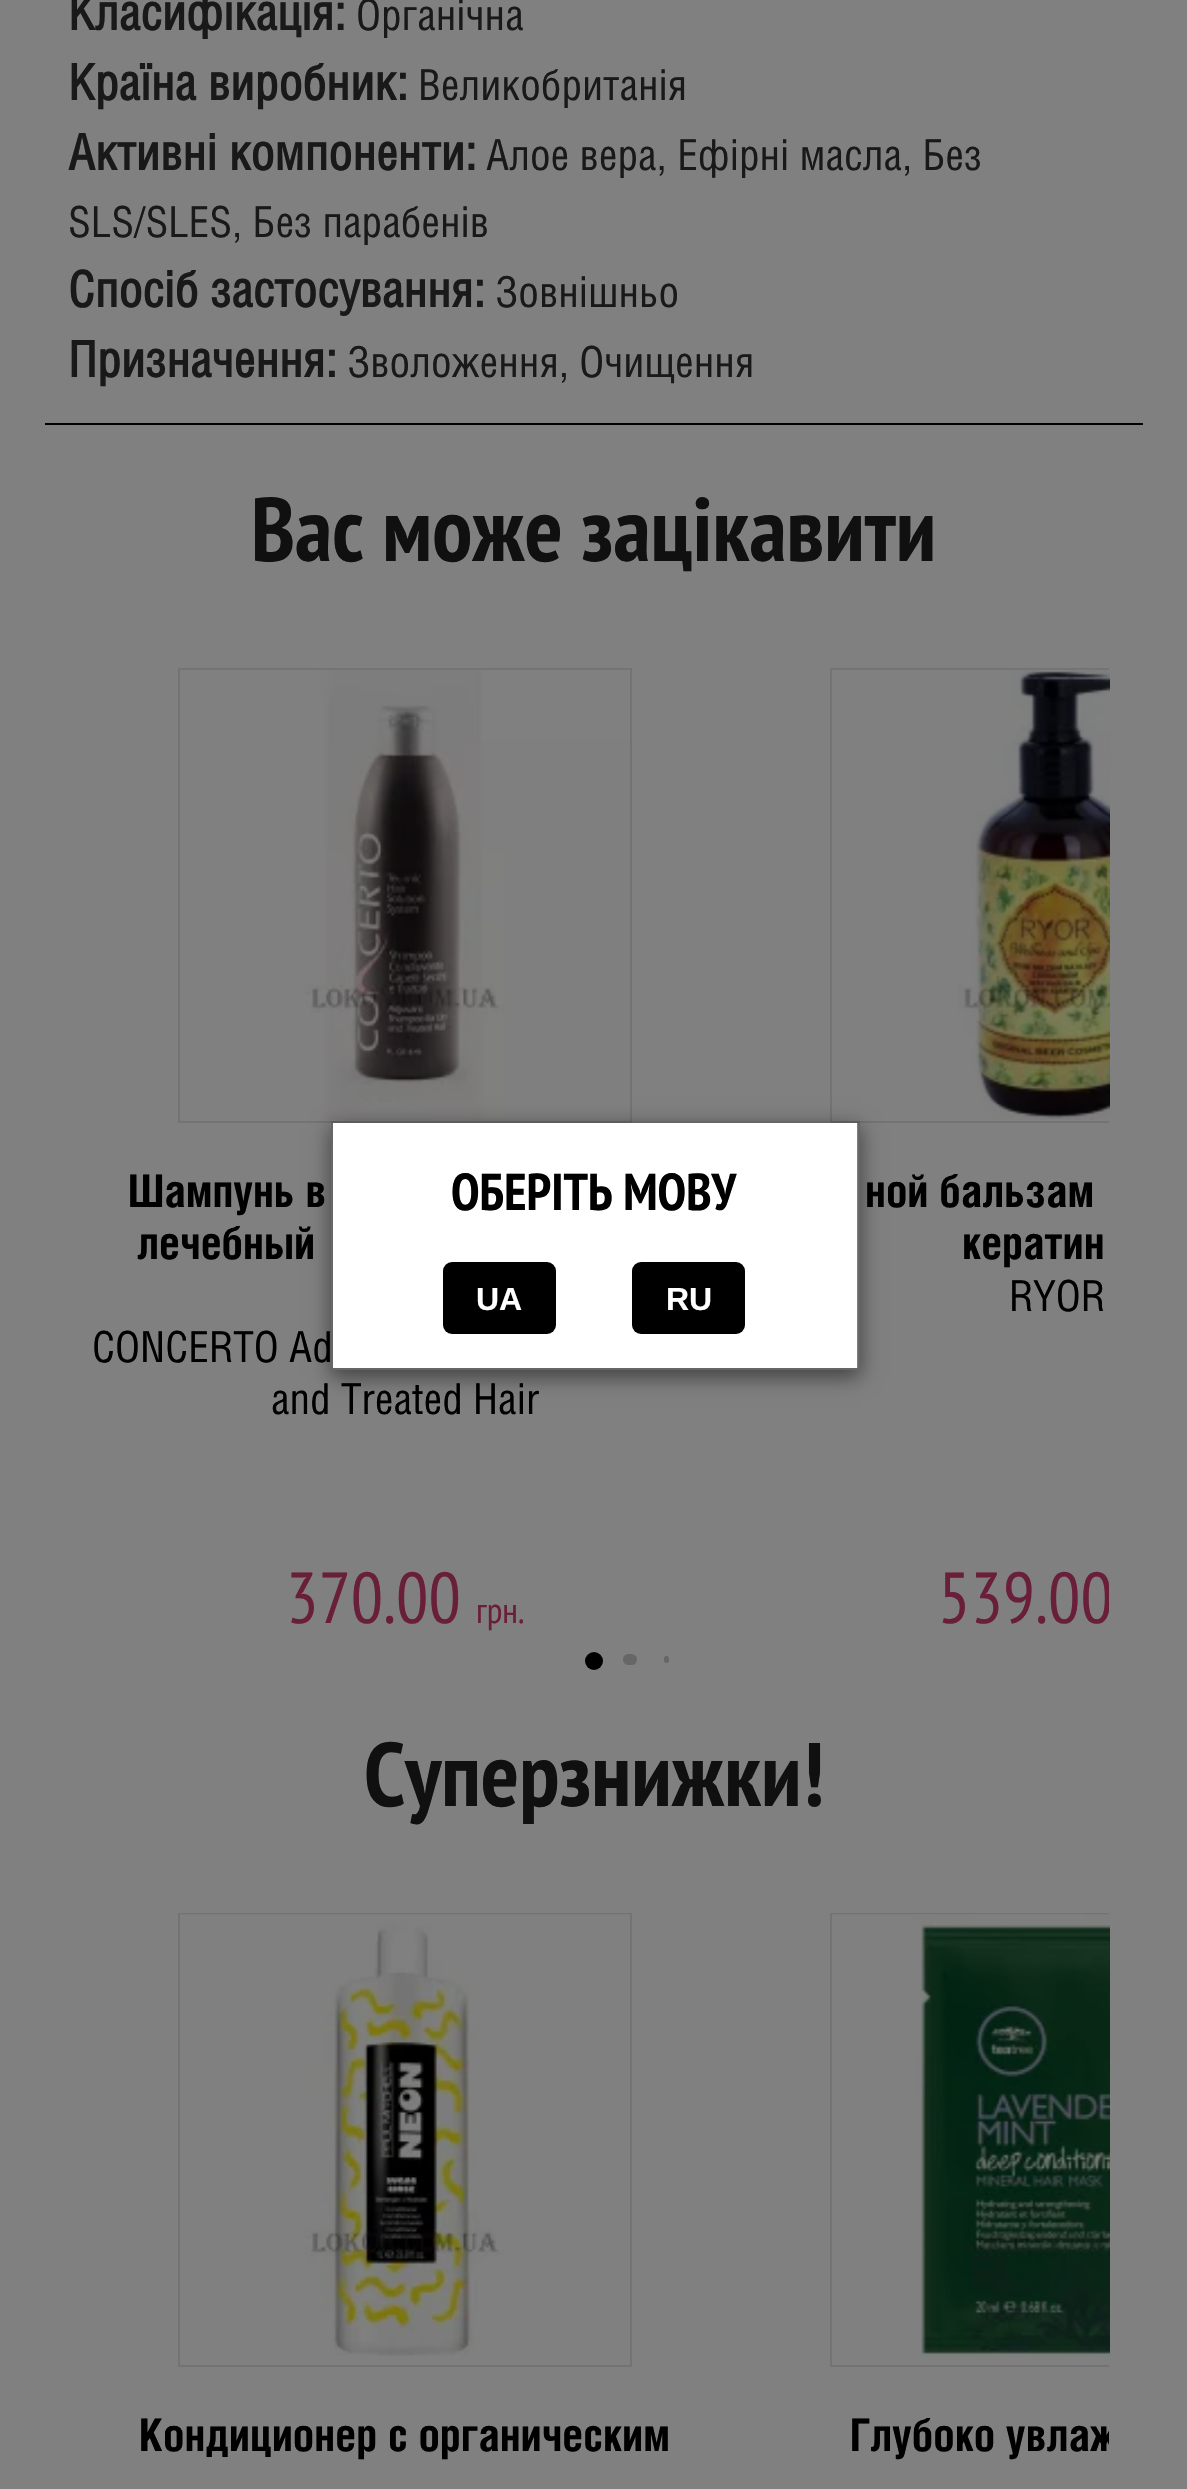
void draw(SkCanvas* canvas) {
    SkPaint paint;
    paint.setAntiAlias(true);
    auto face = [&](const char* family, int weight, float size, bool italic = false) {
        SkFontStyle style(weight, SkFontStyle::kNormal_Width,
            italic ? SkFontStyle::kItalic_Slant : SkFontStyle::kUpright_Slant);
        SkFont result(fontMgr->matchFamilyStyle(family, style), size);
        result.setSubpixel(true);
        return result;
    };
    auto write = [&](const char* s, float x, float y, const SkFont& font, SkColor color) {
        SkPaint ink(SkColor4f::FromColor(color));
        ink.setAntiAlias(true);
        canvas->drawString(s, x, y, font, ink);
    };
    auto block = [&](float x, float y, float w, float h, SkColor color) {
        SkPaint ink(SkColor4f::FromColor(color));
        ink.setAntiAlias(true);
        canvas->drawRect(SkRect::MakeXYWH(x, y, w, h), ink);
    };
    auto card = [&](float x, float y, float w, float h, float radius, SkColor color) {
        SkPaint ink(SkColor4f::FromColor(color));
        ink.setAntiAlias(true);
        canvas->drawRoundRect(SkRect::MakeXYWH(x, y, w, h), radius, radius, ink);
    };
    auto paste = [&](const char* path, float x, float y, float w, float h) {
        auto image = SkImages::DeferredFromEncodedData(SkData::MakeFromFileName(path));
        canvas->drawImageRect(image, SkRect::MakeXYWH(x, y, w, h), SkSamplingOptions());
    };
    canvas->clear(SkColorSetRGB(128, 128, 128));
    block(45, 423, 1098, 2, SK_ColorBLACK);
    auto kFont1 = face("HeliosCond", 700, 49.5f);
    write("Класифікація:", 68, 30, kFont1, SkColorSetRGB(25, 25, 25));
    auto kFont2 = face("HeliosCond", 400, 42.75f);
    write("Органічна", 356, 30, kFont2, SkColorSetRGB(25, 25, 25));
    write("Країна виробник:", 68, 100, kFont1, SkColorSetRGB(25, 25, 25));
    write("Великобританія", 418, 100, kFont2, SkColorSetRGB(25, 25, 25));
    write("Активні компоненти:", 68, 170, kFont1, SkColorSetRGB(25, 25, 25));
    write("Алое вера, Ефірні масла, Без", 486, 170, kFont2, SkColorSetRGB(25, 25, 25));
    write("SLS/SLES, Без парабенів", 68, 237, kFont2, SkColorSetRGB(25, 25, 25));
    write("Спосіб застосування:", 68, 307, kFont1, SkColorSetRGB(25, 25, 25));
    write("Зовнішньо", 495, 307, kFont2, SkColorSetRGB(25, 25, 25));
    write("Призначення:", 68, 377, kFont1, SkColorSetRGB(25, 25, 25));
    write("Зволоження, Очищення", 347, 377, kFont2, SkColorSetRGB(25, 25, 25));
    auto kFont3 = face("PT Sans Narrow", 700, 90);
    write("Вас може зацікавити", 251, 561, kFont3, SkColorSetRGB(16, 16, 16));
    paint.setStyle(SkPaint::kStroke_Style);
    paint.setStrokeWidth(2);
    paint.setColor(SkColorSetRGB(115, 115, 115));
    canvas->drawRect(SkRect::MakeXYWH(179, 669, 452, 453), paint);
    paste("pic1.png", 180, 669, 450, 451);
    auto kFont4 = face("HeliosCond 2", 700, 45);
    write("Шампунь в", 128, 1207, kFont4, SK_ColorBLACK);
    write("лечебный", 137, 1259, kFont4, SK_ColorBLACK);
    write("CONCERTO Ad", 92, 1362, kFont2, SK_ColorBLACK);
    write("and Treated Hair", 271, 1414, kFont2, SK_ColorBLACK);
    auto kFont5 = face("PT Sans Narrow", 400, 72);
    write("370.00", 286, 1623, kFont5, SkColorSetRGB(105, 31, 58));
    auto kFont6 = face("PT Sans Narrow", 400, 36);
    write("грн.", 476, 1623, kFont6, SkColorSetRGB(105, 31, 58));
    canvas->save();
    canvas->clipRect(SkRect::MakeXYWH(79, 632, 1030, 1038));
    canvas->drawRect(SkRect::MakeXYWH(831, 669, 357, 453), paint);
    canvas->restore();
    paste("pic2.png", 833, 669, 277, 451);
    write("ной бальзам", 865, 1207, kFont4, SK_ColorBLACK);
    write("кератин", 962, 1259, kFont4, SK_ColorBLACK);
    write("RYOR", 1009, 1311, kFont2, SK_ColorBLACK);
    canvas->save();
    canvas->clipRect(SkRect::MakeXYWH(79, 632, 1030, 1038));
    write("539.00", 938, 1623, kFont5, SkColorSetRGB(105, 31, 58));
    canvas->restore();
    paint.setStyle(SkPaint::kFill_Style);
    paint.setColor(SK_ColorBLACK);
    canvas->drawCircle(594, 1661, 9, paint);
    card(623, 1654, 14, 11, 5.5f, SkColorSetRGB(102, 102, 102));
    card(664, 1656, 5, 7, 2.5f, SkColorSetRGB(102, 102, 102));
    write("Суперзнижки!", 364, 1806, kFont3, SkColorSetRGB(16, 16, 16));
    paint.setStyle(SkPaint::kStroke_Style);
    paint.setColor(SkColorSetRGB(115, 115, 115));
    canvas->drawRect(SkRect::MakeXYWH(179, 1914, 452, 452), paint);
    paste("pic3.png", 180, 1914, 450, 442);
    write("Кондиционер с органическим", 139, 2451, kFont4, SK_ColorBLACK);
    canvas->save();
    canvas->clipRect(SkRect::MakeXYWH(79, 1877, 1030, 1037));
    canvas->drawRect(SkRect::MakeXYWH(831, 1914, 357, 452), paint);
    canvas->restore();
    paste("pic4.png", 833, 1914, 277, 443);
    canvas->save();
    canvas->clipRect(SkRect::MakeXYWH(79, 1877, 1030, 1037));
    write("Глубоко увлаж", 850, 2451, kFont4, SK_ColorBLACK);
    canvas->restore();
    canvas->save();
    canvas->clipPath(SkPathBuilder(SkPathFillType::kEvenOdd).moveTo(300, 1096).lineTo(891, 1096).lineTo(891, 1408).lineTo(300, 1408).close().moveTo(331, 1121).lineTo(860, 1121).lineTo(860, 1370).lineTo(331, 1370).close().detach(), true);
    paint.setStyle(SkPaint::kFill_Style);
    paint.setColor(SkColorSetARGB(128, 0, 0, 0));
    paint.setMaskFilter(SkMaskFilter::MakeBlur(kNormal_SkBlurStyle, 10));
    canvas->drawRect(SkRect::MakeXYWH(331, 1127, 529, 250), paint);
    paint.setMaskFilter(nullptr);
    canvas->restore();
    block(333, 1123, 524, 245, SK_ColorWHITE);
    paint.setStyle(SkPaint::kStroke_Style);
    paint.setColor(SkColorSetARGB(51, 0, 0, 0));
    canvas->drawRect(SkRect::MakeXYWH(332, 1122, 527, 247), paint);
    auto kFont7 = face("PT Sans Narrow", 700, 51.75f);
    write("ОБЕРІТЬ МОВУ", 451, 1210, kFont7, SK_ColorBLACK);
    card(443, 1262, 113, 72, 9, SK_ColorBLACK);
    auto kFont8 = face("Liberation Sans", 700, 32);
    write("UA", 476, 1310, kFont8, SK_ColorWHITE);
    card(632, 1262, 113, 72, 9, SK_ColorBLACK);
    write("RU", 666, 1310, kFont8, SK_ColorWHITE);
}
